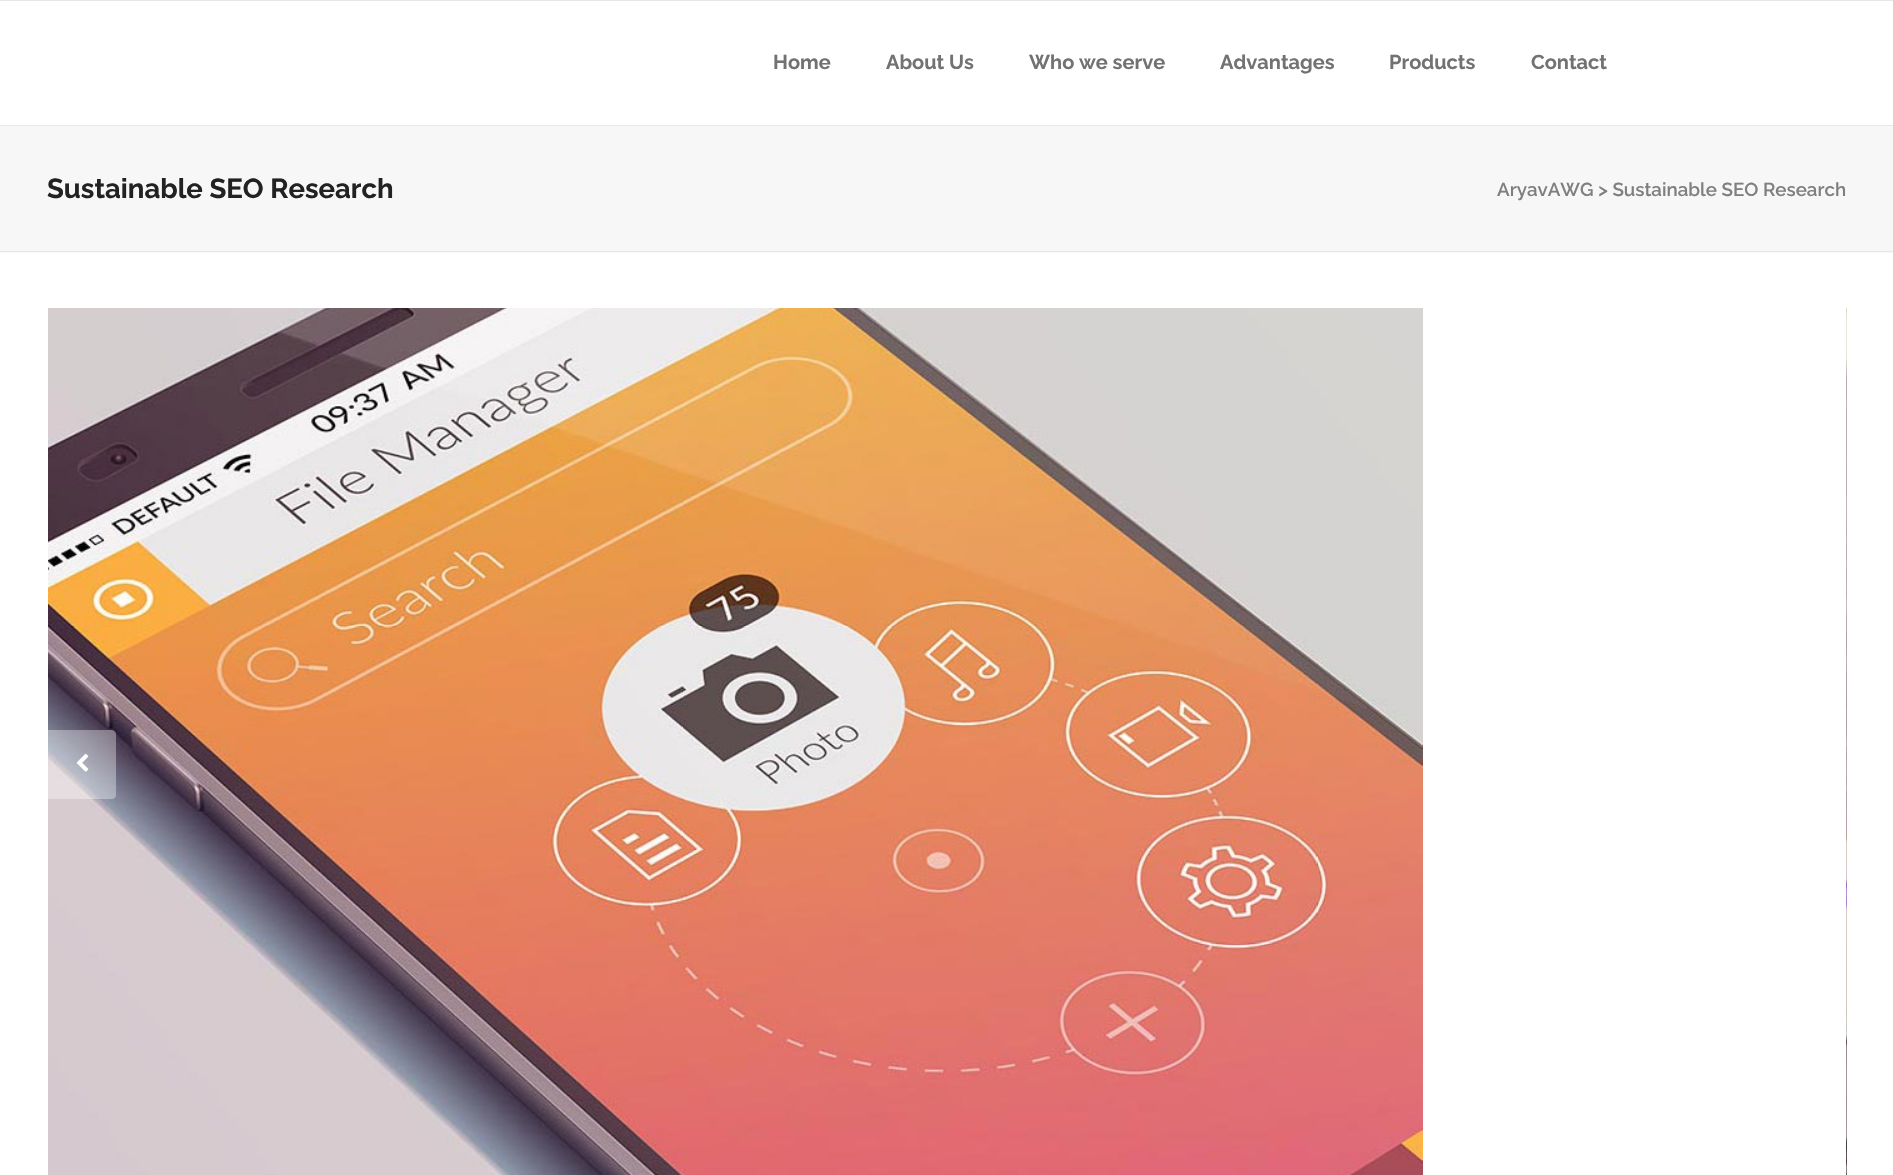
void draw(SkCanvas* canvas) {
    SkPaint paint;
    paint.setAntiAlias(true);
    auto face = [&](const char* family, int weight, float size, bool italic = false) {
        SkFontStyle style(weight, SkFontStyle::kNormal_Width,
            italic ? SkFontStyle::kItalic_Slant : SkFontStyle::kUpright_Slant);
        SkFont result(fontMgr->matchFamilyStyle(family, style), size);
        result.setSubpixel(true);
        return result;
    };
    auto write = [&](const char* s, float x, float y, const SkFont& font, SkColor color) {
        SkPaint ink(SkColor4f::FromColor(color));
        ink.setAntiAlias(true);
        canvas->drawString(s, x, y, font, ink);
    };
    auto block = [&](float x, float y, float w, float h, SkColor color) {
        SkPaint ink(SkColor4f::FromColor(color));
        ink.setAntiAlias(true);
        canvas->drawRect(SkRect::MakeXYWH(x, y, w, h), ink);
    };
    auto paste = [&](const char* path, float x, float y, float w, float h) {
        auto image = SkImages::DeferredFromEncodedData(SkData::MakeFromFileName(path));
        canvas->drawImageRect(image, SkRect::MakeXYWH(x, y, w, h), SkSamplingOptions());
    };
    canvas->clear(SK_ColorWHITE);
    block(0, 0, 1893, 1, SkColorSetRGB(231, 231, 231));
    auto kFont1 = face("Raleway", 700, 20);
    write("Home", 773, 69, kFont1, SkColorSetRGB(114, 114, 114));
    write("About Us", 886, 69, kFont1, SkColorSetRGB(114, 114, 114));
    write("Who we serve", 1029, 69, kFont1, SkColorSetRGB(114, 114, 114));
    write("Advantages", 1220, 69, kFont1, SkColorSetRGB(114, 114, 114));
    write("Products", 1389, 69, kFont1, SkColorSetRGB(114, 114, 114));
    write("Contact", 1531, 69, kFont1, SkColorSetRGB(114, 114, 114));
    block(0, 126, 1893, 127, SkColorSetRGB(247, 247, 247));
    block(0, 125, 1893, 1, SkColorSetRGB(231, 231, 231));
    block(0, 251, 1893, 1, SkColorSetRGB(231, 231, 231));
    auto kFont2 = face("Raleway", 700, 27.5f);
    write("Sustainable SEO Research", 47, 198, kFont2, SkColorSetRGB(34, 34, 34));
    auto kFont3 = face("Raleway", 600, 18.75f);
    write("AryavAWG > Sustainable SEO Research", 1497, 196, kFont3, SkColorSetRGB(127, 127, 127));
    paste("pic1.png", 48, 308, 1375, 867);
    paste("pic2.png", 1846, 308, 1, 867);
    paint.setColor(SkColorSetARGB(89, 255, 255, 255));
    canvas->drawPath(SkPathBuilder().moveTo(48, 730).lineTo(112, 730).cubicTo(114, 730, 116, 732, 116, 734).lineTo(116, 795).cubicTo(116, 797, 114, 799, 112, 799).lineTo(48, 799).close().detach(), paint);
    paste("pic3.png", 76, 753, 13, 19);
}
